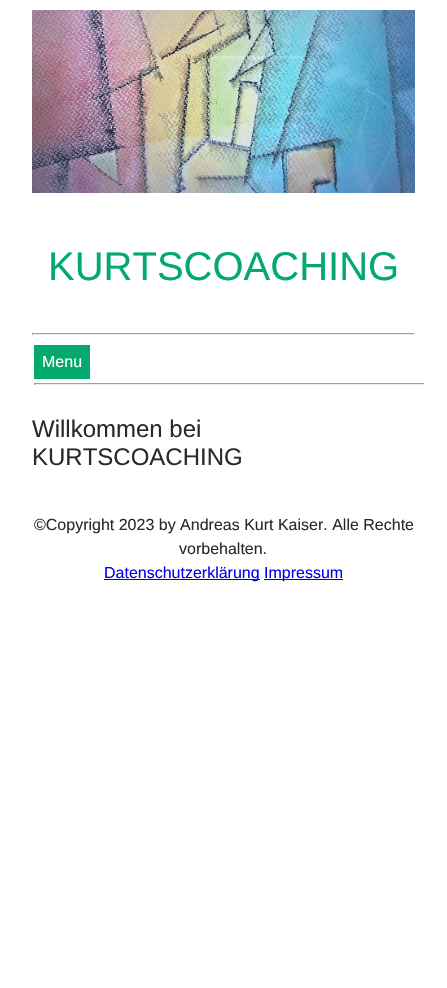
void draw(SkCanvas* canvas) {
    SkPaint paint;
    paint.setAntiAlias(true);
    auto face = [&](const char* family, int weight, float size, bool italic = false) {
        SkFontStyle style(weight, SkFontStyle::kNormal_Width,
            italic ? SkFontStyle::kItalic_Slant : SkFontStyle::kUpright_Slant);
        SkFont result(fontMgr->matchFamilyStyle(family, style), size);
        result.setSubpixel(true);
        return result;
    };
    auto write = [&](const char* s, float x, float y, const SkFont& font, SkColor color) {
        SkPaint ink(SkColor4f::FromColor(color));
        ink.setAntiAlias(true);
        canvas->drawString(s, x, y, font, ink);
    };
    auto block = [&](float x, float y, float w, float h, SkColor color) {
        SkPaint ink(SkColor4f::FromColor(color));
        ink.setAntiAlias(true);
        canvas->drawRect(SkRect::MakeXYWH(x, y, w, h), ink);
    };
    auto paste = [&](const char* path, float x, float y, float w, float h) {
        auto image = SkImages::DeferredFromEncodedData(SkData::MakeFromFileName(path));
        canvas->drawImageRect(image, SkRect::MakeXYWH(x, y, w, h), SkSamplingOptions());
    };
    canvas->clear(SK_ColorWHITE);
    paste("pic1.png", 32, 10, 383, 183);
    auto kFont1 = face("Liberation Sans", 400, 40);
    write("KURTSCOACHING", 48, 280, kFont1, SkColorSetRGB(4, 170, 109));
    block(32, 333, 383, 1, SkColorSetRGB(159, 159, 159));
    block(414, 333, 1, 2, SkColorSetRGB(238, 238, 238));
    block(32, 334, 383, 1, SkColorSetRGB(238, 238, 238));
    block(32, 333, 1, 2, SkColorSetRGB(159, 159, 159));
    block(34, 345, 56, 34, SkColorSetRGB(4, 170, 109));
    auto kFont2 = face("Liberation Sans", 400, 16);
    write("Menu", 42, 367, kFont2, SK_ColorWHITE);
    block(34, 383, 391, 1, SkColorSetRGB(159, 159, 159));
    block(424, 383, 1, 2, SkColorSetRGB(238, 238, 238));
    block(34, 384, 391, 1, SkColorSetRGB(238, 238, 238));
    block(34, 383, 1, 2, SkColorSetRGB(159, 159, 159));
    auto kFont3 = face("Liberation Sans", 400, 24);
    write("Willkommen bei", 32, 437, kFont3, SkColorSetRGB(42, 42, 42));
    write("KURTSCOACHING", 32, 465, kFont3, SkColorSetRGB(42, 42, 42));
    write("©Copyright 2023 by Andreas Kurt Kaiser. Alle Rechte", 34, 530, kFont2, SkColorSetRGB(42, 42, 42));
    write("vorbehalten.", 179, 554, kFont2, SkColorSetRGB(42, 42, 42));
    block(104, 579, 156, 1, SkColorSetRGB(0, 0, 238));
    write("Datenschutzerklärung", 104, 578, kFont2, SkColorSetRGB(0, 0, 238));
    block(264, 579, 79, 1, SkColorSetRGB(0, 0, 238));
    write("Impressum", 264, 578, kFont2, SkColorSetRGB(0, 0, 238));
}
